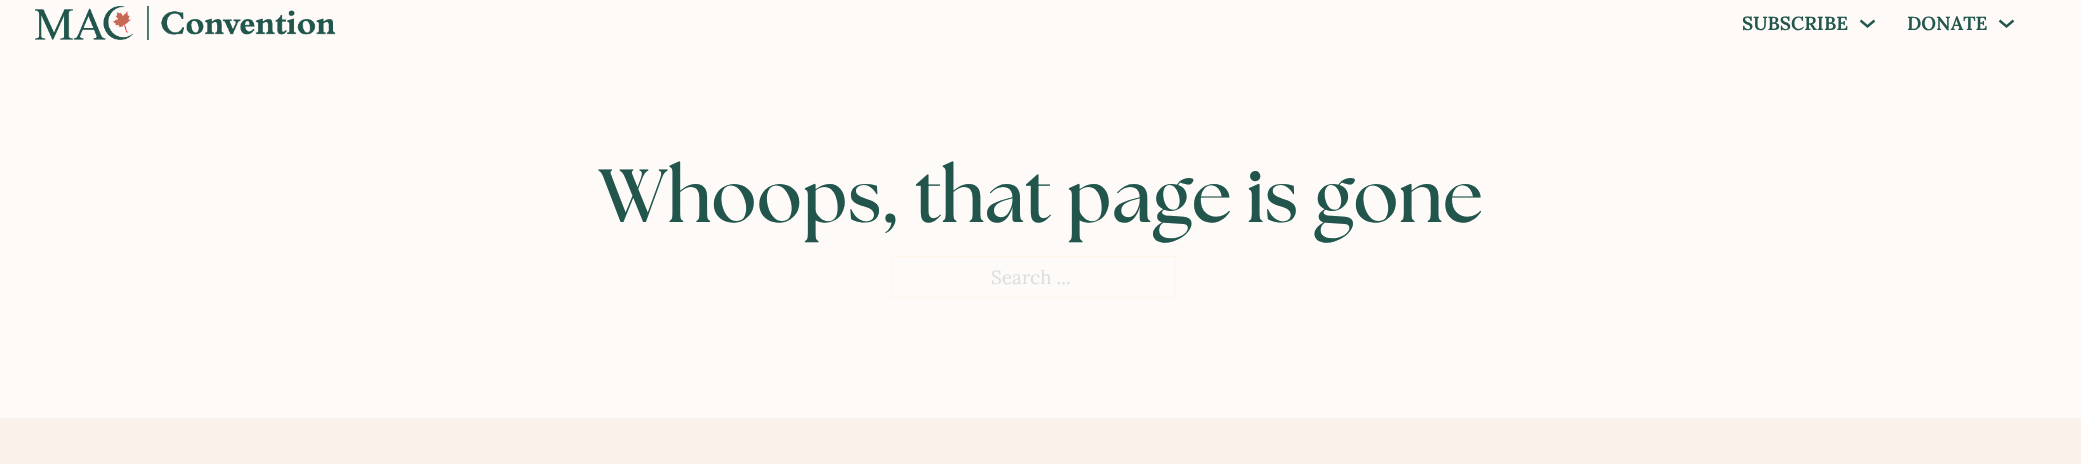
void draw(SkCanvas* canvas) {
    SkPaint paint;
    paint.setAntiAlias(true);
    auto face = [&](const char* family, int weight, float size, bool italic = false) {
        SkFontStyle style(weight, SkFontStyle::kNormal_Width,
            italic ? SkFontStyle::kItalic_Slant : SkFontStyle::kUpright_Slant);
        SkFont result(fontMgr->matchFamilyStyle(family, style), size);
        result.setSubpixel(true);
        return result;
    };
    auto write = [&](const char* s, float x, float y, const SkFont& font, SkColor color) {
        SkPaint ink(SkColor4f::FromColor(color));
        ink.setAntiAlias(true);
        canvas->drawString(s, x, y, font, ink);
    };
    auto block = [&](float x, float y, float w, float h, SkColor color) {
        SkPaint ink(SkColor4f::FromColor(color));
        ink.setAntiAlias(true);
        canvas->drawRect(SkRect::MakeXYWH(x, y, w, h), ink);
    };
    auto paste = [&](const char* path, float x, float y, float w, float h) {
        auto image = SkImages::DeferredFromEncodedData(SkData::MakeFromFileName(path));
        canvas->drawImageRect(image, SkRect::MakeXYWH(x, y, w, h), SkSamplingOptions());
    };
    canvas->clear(SkColorSetRGB(253, 250, 247));
    paste("pic1.png", 35, 6, 300, 34);
    auto kFont1 = face("Lora", 600, 19);
    write("SUBSCRIBE", 1742, 30, kFont1, SkColorSetRGB(34, 86, 77));
    paint.setStyle(SkPaint::kStroke_Style);
    paint.setStrokeWidth(2.4f);
    paint.setColor(SkColorSetRGB(34, 86, 77));
    canvas->drawPath(SkPathBuilder().moveTo(1860.5f, 20.5f).lineTo(1867.5f, 26.5f).lineTo(1874.5f, 20.5f).detach(), paint);
    write("DONATE", 1907, 30, kFont1, SkColorSetRGB(34, 86, 77));
    canvas->drawPath(SkPathBuilder().moveTo(1999.5f, 20.5f).lineTo(2006.5f, 26.5f).lineTo(2013.5f, 20.5f).detach(), paint);
    auto kFont2 = face("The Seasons", 700, 75);
    write("Whoops, that page is gone", 598, 222, kFont2, SkColorSetRGB(34, 86, 77));
    paint.setStrokeWidth(1);
    paint.setColor(SkColorSetRGB(255, 246, 229));
    canvas->drawRect(SkRect::MakeXYWH(891.5f, 256.5f, 284, 41), paint);
    auto kFont3 = face("Lora", 400, 19);
    write("Search ...", 991, 284, kFont3, SkColorSetRGB(221, 222, 223));
    block(0, 418, 2081, 46, SkColorSetRGB(249, 241, 234));
}
